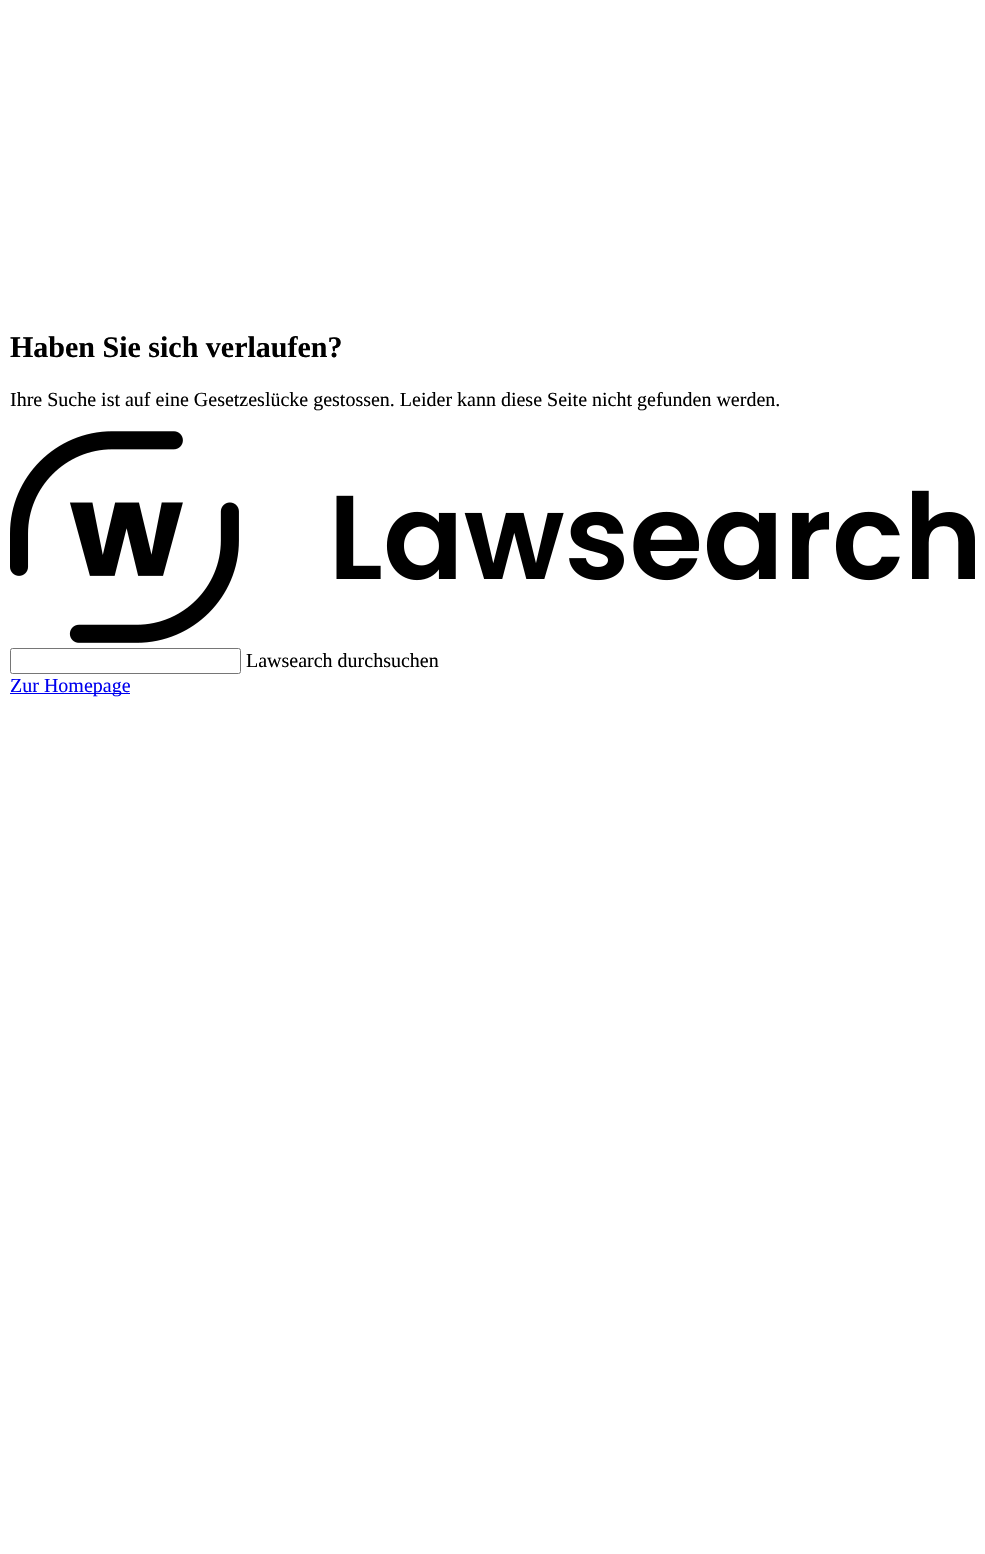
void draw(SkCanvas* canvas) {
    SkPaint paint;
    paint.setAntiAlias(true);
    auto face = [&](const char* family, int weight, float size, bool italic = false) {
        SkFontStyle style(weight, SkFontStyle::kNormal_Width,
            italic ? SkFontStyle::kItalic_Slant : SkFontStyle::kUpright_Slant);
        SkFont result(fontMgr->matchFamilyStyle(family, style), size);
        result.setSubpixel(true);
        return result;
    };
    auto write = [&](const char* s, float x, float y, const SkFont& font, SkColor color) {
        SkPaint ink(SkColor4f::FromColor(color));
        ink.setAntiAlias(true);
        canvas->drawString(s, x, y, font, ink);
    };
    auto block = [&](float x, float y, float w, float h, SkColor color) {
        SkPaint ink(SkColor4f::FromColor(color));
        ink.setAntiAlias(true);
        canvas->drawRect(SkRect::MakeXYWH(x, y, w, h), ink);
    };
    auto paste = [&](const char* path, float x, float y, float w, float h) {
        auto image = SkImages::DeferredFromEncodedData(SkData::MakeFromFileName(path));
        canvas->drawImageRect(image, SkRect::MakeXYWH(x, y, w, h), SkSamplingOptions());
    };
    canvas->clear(SK_ColorWHITE);
    auto kFont1 = face("Liberation Serif", 700, 30);
    write("Haben Sie sich verlaufen?", 10, 357, kFont1, SK_ColorBLACK);
    auto kFont2 = face("Liberation Serif", 400, 20);
    write("Ihre Suche ist auf eine Gesetzeslücke gestossen. Leider kann diese Seite nicht gefunden werden.", 10, 406, kFont2, SK_ColorBLACK);
    paste("pic1.png", 10, 431, 965, 212);
    paint.setStyle(SkPaint::kStroke_Style);
    paint.setStrokeWidth(1);
    paint.setColor(SkColorSetRGB(118, 118, 118));
    canvas->drawRoundRect(SkRect::MakeXYWH(10.5f, 648.5f, 230, 25), 2, 2, paint);
    write("Lawsearch durchsuchen", 246, 667, kFont2, SK_ColorBLACK);
    block(10, 693, 120, 1, SkColorSetRGB(0, 0, 238));
    write("Zur Homepage", 10, 692, kFont2, SkColorSetRGB(0, 0, 238));
}
